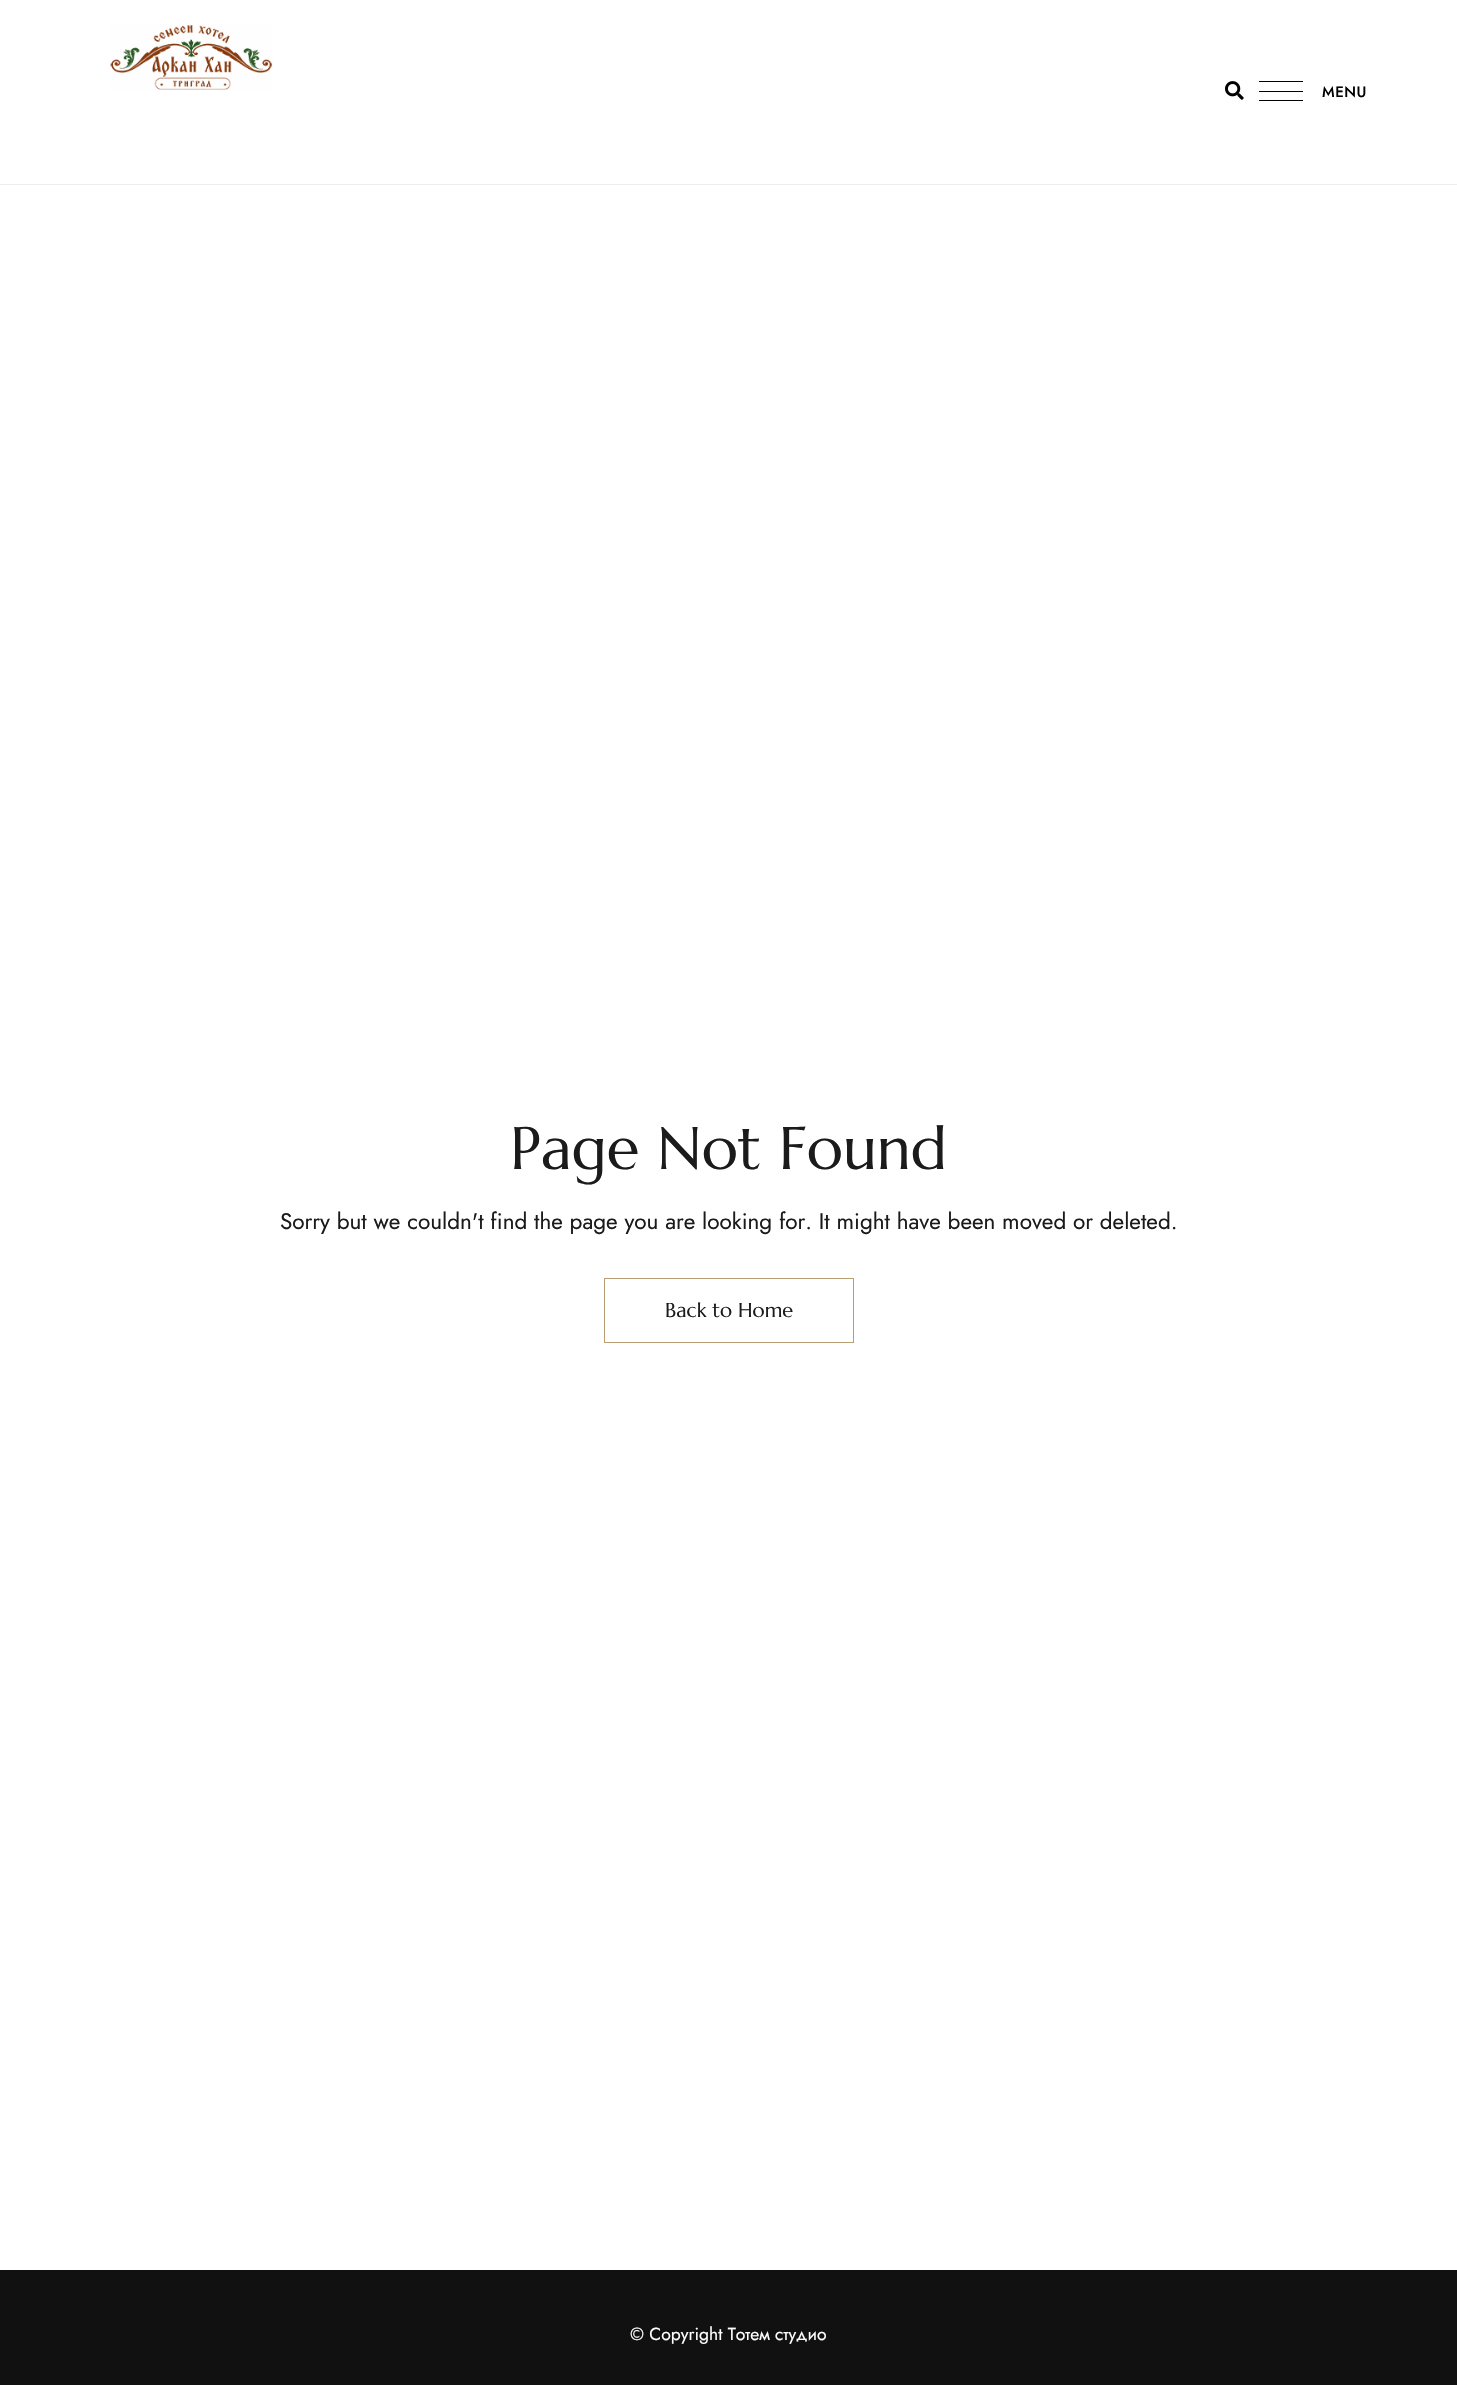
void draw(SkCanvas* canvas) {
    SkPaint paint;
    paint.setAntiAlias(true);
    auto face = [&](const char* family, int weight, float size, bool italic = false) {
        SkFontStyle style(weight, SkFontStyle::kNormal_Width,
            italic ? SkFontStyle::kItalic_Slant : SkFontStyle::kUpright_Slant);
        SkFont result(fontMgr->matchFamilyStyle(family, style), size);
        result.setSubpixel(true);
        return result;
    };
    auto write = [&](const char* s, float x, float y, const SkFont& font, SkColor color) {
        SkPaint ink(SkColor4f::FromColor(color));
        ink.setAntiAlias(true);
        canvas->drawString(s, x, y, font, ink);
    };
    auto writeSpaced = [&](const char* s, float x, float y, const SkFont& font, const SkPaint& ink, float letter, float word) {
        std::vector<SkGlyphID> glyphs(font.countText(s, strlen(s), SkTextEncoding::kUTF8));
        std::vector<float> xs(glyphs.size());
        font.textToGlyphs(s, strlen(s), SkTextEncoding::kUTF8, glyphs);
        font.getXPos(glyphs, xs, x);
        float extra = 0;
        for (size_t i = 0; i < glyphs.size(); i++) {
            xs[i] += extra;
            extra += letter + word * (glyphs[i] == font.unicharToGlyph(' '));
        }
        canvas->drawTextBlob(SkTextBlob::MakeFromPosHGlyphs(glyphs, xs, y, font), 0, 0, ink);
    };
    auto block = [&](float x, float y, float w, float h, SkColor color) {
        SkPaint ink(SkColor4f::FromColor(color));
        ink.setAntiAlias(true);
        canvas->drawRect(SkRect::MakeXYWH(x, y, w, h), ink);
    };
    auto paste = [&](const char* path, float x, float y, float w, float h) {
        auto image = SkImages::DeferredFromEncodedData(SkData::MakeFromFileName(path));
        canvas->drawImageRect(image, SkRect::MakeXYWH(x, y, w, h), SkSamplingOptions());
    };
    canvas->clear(SK_ColorWHITE);
    block(0, 184, 1457, 1, SkColorSetRGB(238, 238, 238));
    paste("pic1.png", 110, 25, 163, 65);
    paste("pic2.png", 1225, 81, 19, 19);
    block(1259, 81, 44, 1, SK_ColorBLACK);
    block(1259, 100, 44, 1, SK_ColorBLACK);
    block(1259, 91, 44, 1, SK_ColorBLACK);
    auto kFont1 = face("Jost", 500, 15);
    paint.setColor(SK_ColorBLACK);
    writeSpaced("MENU", 1322, 97, kFont1, paint, 0.5f, 0);
    auto kFont2 = face("Marcellus", 400, 60);
    write("Page Not Found", 510, 1169, kFont2, SkColorSetRGB(26, 27, 26));
    auto kFont3 = face("Jost", 400, 22.5f);
    write("Sorry but we couldn't find the page you are looking for. It might have been moved or deleted.", 280, 1229, kFont3, SkColorSetRGB(26, 27, 26));
    paint.setStyle(SkPaint::kStroke_Style);
    paint.setStrokeWidth(1);
    paint.setColor(SkColorSetRGB(185, 157, 117));
    canvas->drawRect(SkRect::MakeXYWH(604.5f, 1278.5f, 249, 64), paint);
    auto kFont4 = face("Marcellus", 400, 20);
    write("Back to Home", 665, 1317, kFont4, SkColorSetRGB(26, 27, 26));
    block(0, 2270, 1457, 115, SkColorSetRGB(17, 17, 17));
    auto kFont5 = face("Jost", 400, 17.5f);
    write("© Copyright Тотем студио", 630, 2340, kFont5, SK_ColorWHITE);
}
